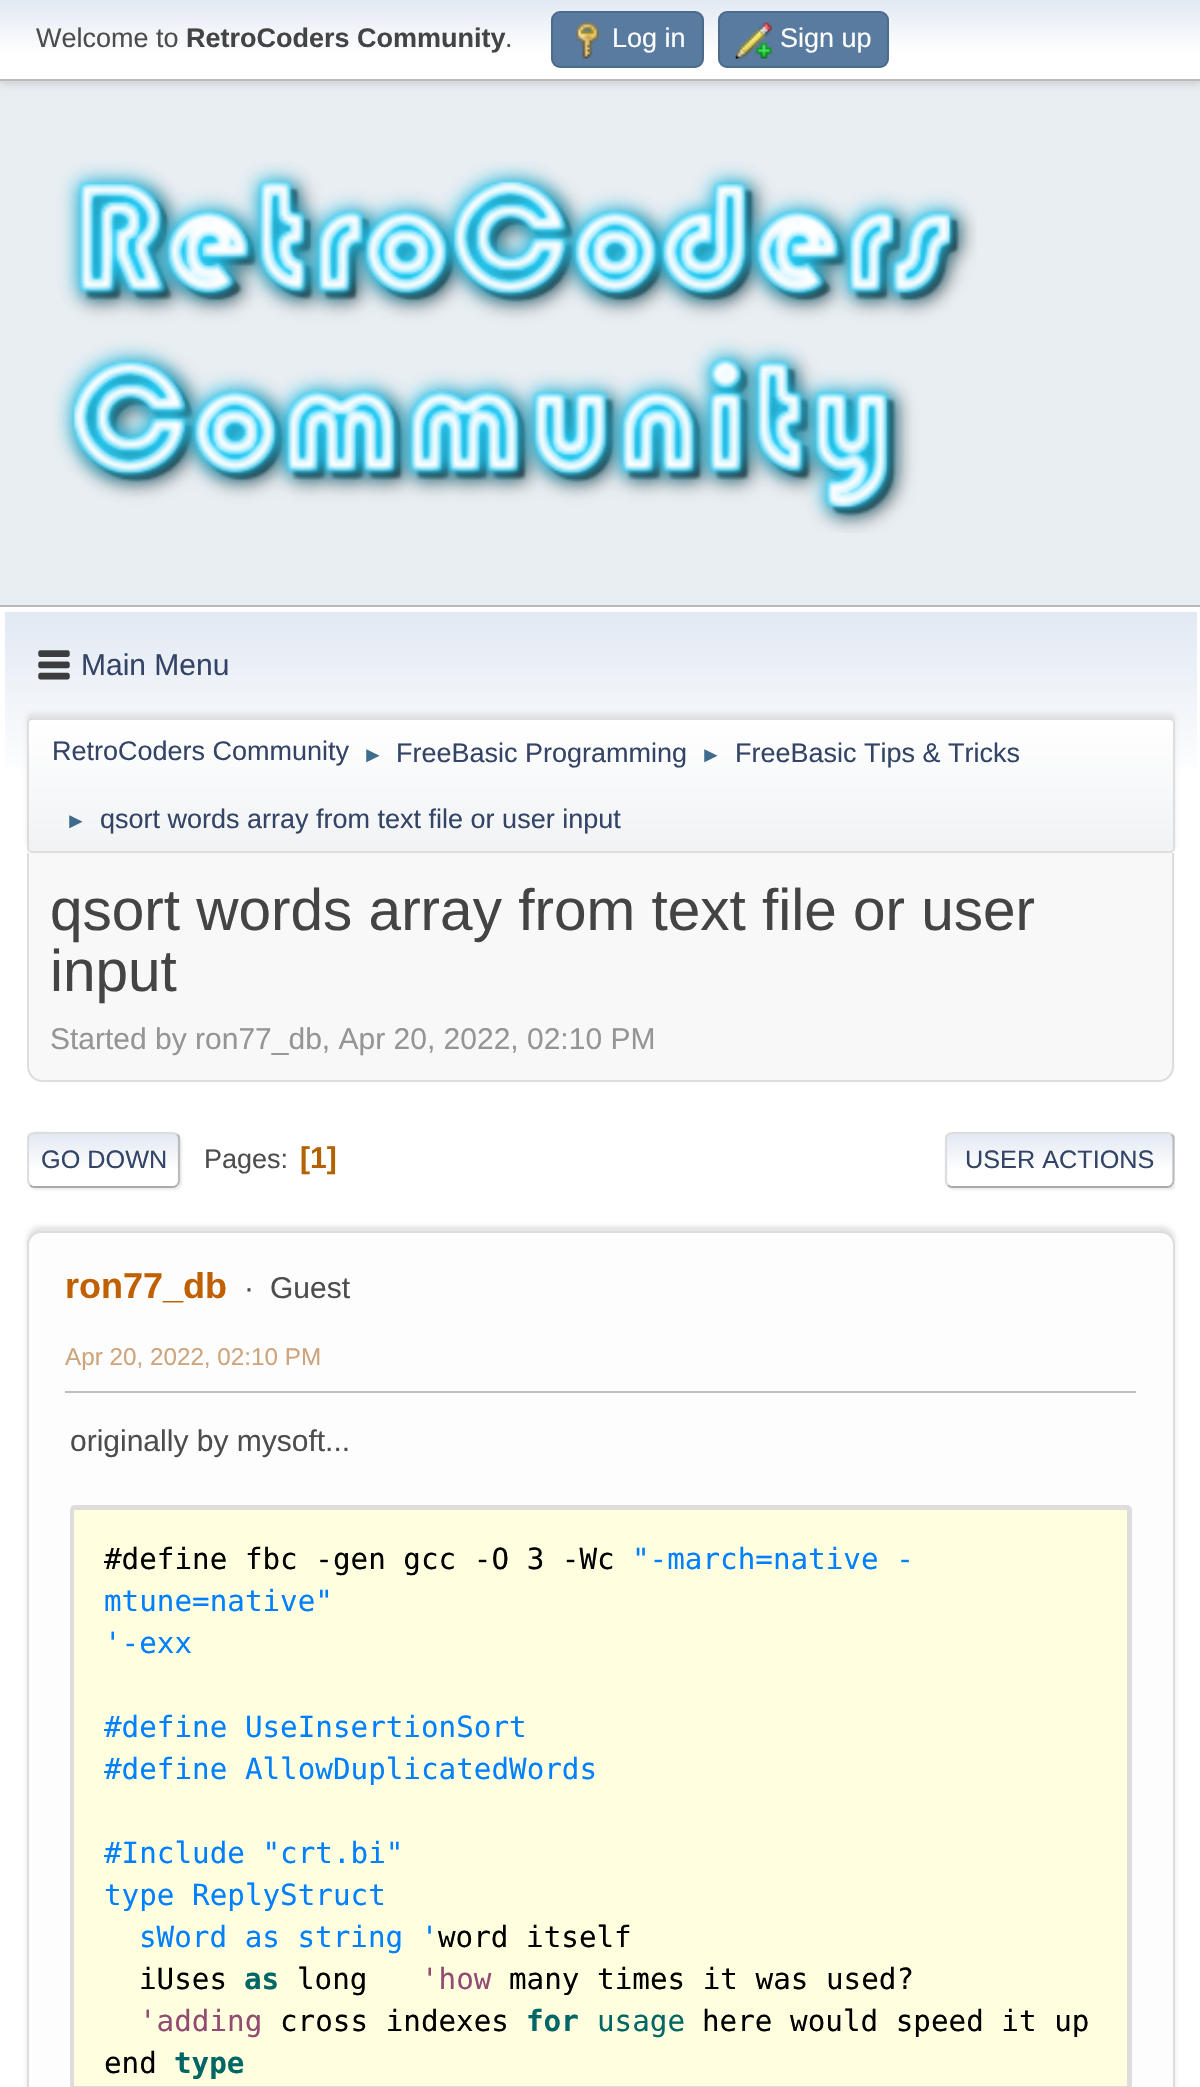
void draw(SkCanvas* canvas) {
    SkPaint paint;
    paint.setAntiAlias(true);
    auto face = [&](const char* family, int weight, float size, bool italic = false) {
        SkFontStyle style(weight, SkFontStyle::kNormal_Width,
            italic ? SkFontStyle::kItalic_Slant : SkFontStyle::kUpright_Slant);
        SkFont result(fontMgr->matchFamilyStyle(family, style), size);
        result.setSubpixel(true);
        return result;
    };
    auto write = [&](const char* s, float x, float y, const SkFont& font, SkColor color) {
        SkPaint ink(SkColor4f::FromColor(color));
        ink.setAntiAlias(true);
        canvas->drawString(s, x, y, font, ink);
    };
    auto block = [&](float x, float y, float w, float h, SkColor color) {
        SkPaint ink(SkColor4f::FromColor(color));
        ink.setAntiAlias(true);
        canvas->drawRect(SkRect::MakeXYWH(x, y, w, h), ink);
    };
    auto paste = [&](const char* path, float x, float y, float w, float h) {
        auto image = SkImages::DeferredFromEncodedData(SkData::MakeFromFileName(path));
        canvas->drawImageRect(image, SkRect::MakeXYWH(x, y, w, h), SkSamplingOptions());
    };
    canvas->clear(SkColorSetRGB(233, 238, 242));
    paint.setColor(SkColorSetARGB(41, 0, 0, 0));
    paint.setMaskFilter(SkMaskFilter::MakeBlur(kNormal_SkBlurStyle, 4.5f));
    canvas->drawRect(SkRect::MakeXYWH(0, 2, 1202, 81), paint);
    paint.setMaskFilter(nullptr);
    {
        const SkColor colors[] = {SkColorSetRGB(226, 233, 243), SK_ColorWHITE};
        const float stops[] = {0, 0.7f};
        const SkPoint ends[] = {{601, 0}, {601, 79}};
        paint.setShader(SkGradientShader::MakeLinear(ends, colors, stops, 2, SkTileMode::kClamp));
        paint.setAlpha(255);
    }
    canvas->drawRect(SkRect::MakeXYWH(0, 0, 1200, 79), paint);
    block(0, 79, 1200, 2, SkColorSetRGB(187, 187, 187));
    auto kFont1 = face("Liberation Sans", 400, 27);
    write("Welcome to", 36, 47, kFont1, SkColorSetRGB(77, 77, 77));
    auto kFont2 = face("Liberation Sans", 700, 27);
    write("RetroCoders Community", 186, 47, kFont2, SkColorSetRGB(68, 68, 68));
    write(".", 505, 47, kFont1, SkColorSetRGB(77, 77, 77));
    paint.setShader(nullptr);
    paint.setColor(SkColorSetRGB(89, 123, 159));
    canvas->drawRoundRect(SkRect::MakeXYWH(552, 12, 151, 55), 8, 8, paint);
    paint.setStyle(SkPaint::kStroke_Style);
    paint.setStrokeWidth(2);
    paint.setColor(SkColorSetRGB(74, 107, 140));
    canvas->drawRoundRect(SkRect::MakeXYWH(552, 12, 151, 55), 8, 8, paint);
    paste("pic1.png", 575, 22, 25, 37);
    write("Log in", 612, 47, kFont1, SK_ColorWHITE);
    paint.setStyle(SkPaint::kFill_Style);
    paint.setColor(SkColorSetRGB(89, 123, 159));
    canvas->drawRoundRect(SkRect::MakeXYWH(719, 12, 169, 55), 8, 8, paint);
    paint.setStyle(SkPaint::kStroke_Style);
    paint.setColor(SkColorSetRGB(74, 107, 140));
    canvas->drawRoundRect(SkRect::MakeXYWH(719, 12, 169, 55), 8, 8, paint);
    paste("pic2.png", 735, 22, 37, 37);
    write("Sign up", 780, 47, kFont1, SK_ColorWHITE);
    paste("pic3.png", 53, 161, 924, 372);
    block(0, 607, 1200, 1480, SK_ColorWHITE);
    block(0, 605, 1200, 2, SkColorSetRGB(184, 184, 184));
    paint.setStyle(SkPaint::kFill_Style);
    {
        const SkColor colors[] = {SkColorSetRGB(226, 233, 243), SK_ColorWHITE};
        const float stops[] = {0, 0.7f};
        const SkPoint ends[] = {{601, 612}, {601, 857}};
        paint.setShader(SkGradientShader::MakeLinear(ends, colors, stops, 2, SkTileMode::kClamp));
        paint.setAlpha(255);
    }
    canvas->drawRect(SkRect::MakeXYWH(5, 612, 1192, 157), paint);
    paste("pic4.png", 38, 650, 32, 30);
    auto kFont3 = face("Liberation Sans", 400, 30);
    write("Main Menu", 81, 675, kFont3, SkColorSetRGB(51, 68, 102));
    paint.setShader(nullptr);
    paint.setColor(SkColorSetARGB(20, 0, 0, 0));
    paint.setMaskFilter(SkMaskFilter::MakeBlur(kNormal_SkBlurStyle, 2));
    canvas->drawRoundRect(SkRect::MakeXYWH(27, 713, 1148, 135), 5, 5, paint);
    paint.setMaskFilter(nullptr);
    canvas->save();
    canvas->clipPath(SkPathBuilder().moveTo(32, 718).lineTo(1170, 718).cubicTo(1173, 718, 1175, 720, 1175, 723).lineTo(1175, 848).cubicTo(1175, 851, 1173, 853, 1170, 853).lineTo(32, 853).cubicTo(29, 853, 27, 851, 27, 848).lineTo(27, 723).cubicTo(27, 720, 29, 718, 32, 718).close().detach(), true);
    {
        const SkColor colors[] = {SK_ColorWHITE, SkColorSetRGB(241, 243, 245)};
        const float stops[] = {0, 0.95f};
        const SkPoint ends[] = {{601, 720}, {601, 851}};
        paint.setShader(SkGradientShader::MakeLinear(ends, colors, stops, 2, SkTileMode::kClamp));
        paint.setAlpha(255);
    }
    canvas->drawRect(SkRect::MakeXYWH(27, 720, 1148, 131), paint);
    canvas->restore();
    paint.setStyle(SkPaint::kStroke_Style);
    paint.setShader(nullptr);
    paint.setColor(SkColorSetRGB(221, 221, 221));
    canvas->drawRoundRect(SkRect::MakeXYWH(28, 719, 1146, 133), 4, 4, paint);
    write("RetroCoders Community", 52, 760, kFont1, SkColorSetRGB(51, 68, 102));
    auto kFont4 = face("Liberation Sans", 400, 22);
    write("►", 362, 762, kFont4, SkColorSetRGB(63, 107, 140));
    write("FreeBasic Programming", 396, 762, kFont1, SkColorSetRGB(51, 68, 102));
    write("►", 700, 762, kFont4, SkColorSetRGB(63, 107, 140));
    write("FreeBasic Tips & Tricks", 735, 762, kFont1, SkColorSetRGB(51, 68, 102));
    write("►", 65, 828, kFont4, SkColorSetRGB(63, 107, 140));
    write("qsort words array from text file or user input", 100, 828, kFont1, SkColorSetRGB(51, 68, 102));
    paint.setStyle(SkPaint::kFill_Style);
    paint.setColor(SkColorSetRGB(248, 248, 248));
    canvas->drawPath(SkPathBuilder().moveTo(27, 853).lineTo(1175, 853).lineTo(1175, 1066).cubicTo(1175, 1075, 1168, 1082, 1159, 1082).lineTo(43, 1082).cubicTo(34, 1082, 27, 1075, 27, 1066).close().detach(), paint);
    paint.setColor(SkColorSetRGB(221, 221, 221));
    canvas->drawPath(SkPathBuilder(SkPathFillType::kEvenOdd).moveTo(27, 853).lineTo(1174, 853).lineTo(1174, 1066).cubicTo(1174, 1075, 1167, 1082, 1159, 1082).lineTo(43, 1082).cubicTo(34, 1082, 27, 1075, 27, 1066).close().moveTo(29, 853).lineTo(1172, 853).lineTo(1172, 1066).cubicTo(1172, 1074, 1166, 1080, 1159, 1080).lineTo(43, 1080).cubicTo(35, 1080, 29, 1074, 29, 1066).close().detach(), paint);
    auto kFont5 = face("Liberation Sans", 400, 58.5f);
    write("qsort words array from text file or user", 50, 930, kFont5, SkColorSetRGB(68, 68, 68));
    write("input", 50, 991, kFont5, SkColorSetRGB(68, 68, 68));
    write("Started by ron77_db, Apr 20, 2022, 02:10 PM", 50, 1049, kFont3, SkColorSetRGB(149, 149, 149));
    paint.setColor(SkColorSetARGB(145, 221, 221, 221));
    paint.setMaskFilter(SkMaskFilter::MakeBlur(kNormal_SkBlurStyle, 1));
    canvas->drawRoundRect(SkRect::MakeXYWH(29, 1134, 153, 56), 7, 7, paint);
    paint.setMaskFilter(nullptr);
    canvas->save();
    canvas->clipPath(SkPathBuilder().moveTo(34, 1132).lineTo(173, 1132).cubicTo(177, 1132, 180, 1135, 180, 1139).lineTo(180, 1181).cubicTo(180, 1185, 177, 1188, 173, 1188).lineTo(34, 1188).cubicTo(30, 1188, 27, 1185, 27, 1181).lineTo(27, 1139).cubicTo(27, 1135, 30, 1132, 34, 1132).close().detach(), true);
    {
        const SkColor colors[] = {SkColorSetRGB(226, 233, 243), SK_ColorWHITE};
        const float stops[] = {0, 0.7f};
        const SkPoint ends[] = {{104, 1134}, {104, 1186}};
        paint.setShader(SkGradientShader::MakeLinear(ends, colors, stops, 2, SkTileMode::kClamp));
        paint.setAlpha(255);
    }
    canvas->drawRect(SkRect::MakeXYWH(27, 1134, 153, 52), paint);
    canvas->restore();
    paint.setStyle(SkPaint::kStroke_Style);
    paint.setStrokeWidth(2.2f);
    paint.setShader(nullptr);
    paint.setColor(SkColorSetRGB(187, 187, 187));
    canvas->drawPath(SkPathBuilder().moveTo(177, 1134.5f).cubicTo(178.5f, 1135.5f, 179, 1137, 179, 1138.5f).lineTo(179, 1181).cubicTo(179, 1182.5f, 178.5f, 1184, 177, 1185).detach(), paint);
    paint.setColor(SkColorSetRGB(170, 170, 170));
    canvas->drawPath(SkPathBuilder().moveTo(177, 1185).cubicTo(176, 1186.5f, 174.5f, 1187, 173, 1187).lineTo(34, 1187).cubicTo(32.5f, 1187, 31, 1186.5f, 30, 1185).detach(), paint);
    canvas->save();
    canvas->clipRect(SkRect::MakeXYWH(27, 1116, 1148, 88));
    paint.setColor(SkColorSetRGB(221, 221, 221));
    canvas->drawPath(SkPathBuilder().moveTo(30, 1185).cubicTo(27, 1182.5f, 28, 1177, 28, 1174).lineTo(28, 1160).cubicTo(28, 1128, 23, 1133, 57, 1133).lineTo(173, 1133).cubicTo(174.5f, 1133, 176, 1133.5f, 177, 1134.5f).detach(), paint);
    canvas->restore();
    auto kFont6 = face("Liberation Sans", 400, 25.25f);
    write("GO DOWN", 41, 1168, kFont6, SkColorSetRGB(51, 68, 102));
    write("Pages:", 204, 1168, kFont1, SkColorSetRGB(77, 77, 77));
    auto kFont7 = face("Liberation Sans", 700, 30);
    write("[1]", 300, 1168, kFont7, SkColorSetRGB(180, 97, 0));
    canvas->save();
    canvas->clipRect(SkRect::MakeXYWH(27, 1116, 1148, 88));
    paint.setStyle(SkPaint::kFill_Style);
    paint.setColor(SkColorSetARGB(145, 221, 221, 221));
    paint.setMaskFilter(SkMaskFilter::MakeBlur(kNormal_SkBlurStyle, 1));
    canvas->drawRoundRect(SkRect::MakeXYWH(947, 1134, 230, 56), 7, 7, paint);
    paint.setMaskFilter(nullptr);
    canvas->restore();
    canvas->save();
    canvas->clipPath(SkPathBuilder().moveTo(952, 1132).lineTo(1168, 1132).cubicTo(1172, 1132, 1175, 1135, 1175, 1139).lineTo(1175, 1181).cubicTo(1175, 1185, 1172, 1188, 1168, 1188).lineTo(952, 1188).cubicTo(948, 1188, 945, 1185, 945, 1181).lineTo(945, 1139).cubicTo(945, 1135, 948, 1132, 952, 1132).close().detach(), true);
    {
        const SkColor colors[] = {SkColorSetRGB(226, 233, 243), SK_ColorWHITE};
        const float stops[] = {0, 0.7f};
        const SkPoint ends[] = {{1060, 1134}, {1060, 1186}};
        paint.setShader(SkGradientShader::MakeLinear(ends, colors, stops, 2, SkTileMode::kClamp));
        paint.setAlpha(255);
    }
    canvas->drawRect(SkRect::MakeXYWH(945, 1134, 230, 52), paint);
    {
        const SkColor colors[] = {SkColorSetRGB(226, 233, 243), SK_ColorWHITE};
        const float stops[] = {0, 0.7f};
        const SkPoint ends[] = {{1060, 1186}, {1060, 1238}};
        paint.setShader(SkGradientShader::MakeLinear(ends, colors, stops, 2, SkTileMode::kClamp));
        paint.setAlpha(255);
    }
    canvas->drawRect(SkRect::MakeXYWH(945, 1186, 230, 2), paint);
    canvas->restore();
    paint.setStyle(SkPaint::kStroke_Style);
    paint.setShader(nullptr);
    paint.setColor(SkColorSetRGB(187, 187, 187));
    canvas->drawPath(SkPathBuilder().moveTo(1171.5f, 1134.5f).cubicTo(1173, 1135.5f, 1173.5f, 1137, 1173.5f, 1138.5f).lineTo(1173.5f, 1181).cubicTo(1173.5f, 1182.5f, 1173, 1184, 1171.5f, 1185).detach(), paint);
    paint.setColor(SkColorSetRGB(170, 170, 170));
    canvas->drawPath(SkPathBuilder().moveTo(1171.5f, 1185).cubicTo(1170.5f, 1186.5f, 1169, 1187, 1168, 1187).lineTo(952, 1187).cubicTo(950.5f, 1187, 949, 1186.5f, 948, 1185).detach(), paint);
    paint.setColor(SkColorSetRGB(221, 221, 221));
    canvas->drawPath(SkPathBuilder().moveTo(948, 1185).cubicTo(946.5f, 1184, 946, 1182.5f, 946, 1181).lineTo(946, 1138.5f).cubicTo(946, 1137, 946.5f, 1135.5f, 948, 1134.5f).cubicTo(949, 1133.5f, 950.5f, 1133, 952, 1133).lineTo(1168, 1133).cubicTo(1169, 1133, 1170.5f, 1133.5f, 1171.5f, 1134.5f).detach(), paint);
    write("USER ACTIONS", 965, 1168, kFont6, SkColorSetRGB(51, 68, 102));
    paint.setStyle(SkPaint::kFill_Style);
    paint.setColor(SkColorSetARGB(26, 0, 0, 0));
    paint.setMaskFilter(SkMaskFilter::MakeBlur(kNormal_SkBlurStyle, 2));
    canvas->drawRoundRect(SkRect::MakeXYWH(27, 1226, 1148, 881), 14, 14, paint);
    paint.setMaskFilter(nullptr);
    paint.setColor(SkColorSetRGB(253, 253, 253));
    canvas->drawRoundRect(SkRect::MakeXYWH(28, 1232, 1146, 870), 13, 13, paint);
    paint.setStyle(SkPaint::kStroke_Style);
    paint.setStrokeWidth(2);
    paint.setColor(SkColorSetRGB(221, 221, 221));
    canvas->drawRoundRect(SkRect::MakeXYWH(28, 1232, 1146, 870), 13, 13, paint);
    auto kFont8 = face("Liberation Sans", 700, 36);
    write("ron77_db", 65, 1298, kFont8, SkColorSetRGB(192, 96, 2));
    write("·", 244, 1298, kFont3, SkColorSetRGB(77, 77, 77));
    write("Guest", 270, 1298, kFont3, SkColorSetRGB(77, 77, 77));
    auto kFont9 = face("Liberation Sans", 400, 24.25f);
    write("Apr 20, 2022, 02:10 PM", 65, 1365, kFont9, SkColorSetRGB(205, 164, 123));
    block(65, 1391, 1071, 2, SkColorSetRGB(191, 191, 191));
    write("originally by mysoft...", 70, 1451, kFont3, SkColorSetRGB(77, 77, 77));
    paint.setStrokeWidth(5);
    canvas->drawRoundRect(SkRect::MakeXYWH(72.5f, 1507.5f, 1057, 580), 2.5f, 2.5f, paint);
    block(74, 1510, 1053, 576, SkColorSetRGB(255, 255, 223));
    auto kFont10 = face("DejaVu Sans Mono", 400, 29.25f);
    write("#define fbc -gen gcc -O 3 -Wc", 104, 1569, kFont10, SK_ColorBLACK);
    write("\"-march=native -", 632, 1569, kFont10, SkColorSetRGB(0, 128, 255));
    write("mtune=native\"", 104, 1611, kFont10, SkColorSetRGB(0, 128, 255));
    write("'-exx", 104, 1653, kFont10, SkColorSetRGB(0, 128, 255));
    write("#define UseInsertionSort", 104, 1737, kFont10, SkColorSetRGB(0, 128, 255));
    write("#define AllowDuplicatedWords", 104, 1779, kFont10, SkColorSetRGB(0, 128, 255));
    write("#Include \"crt.bi\"", 104, 1863, kFont10, SkColorSetRGB(0, 128, 255));
    write("type ReplyStruct", 104, 1905, kFont10, SkColorSetRGB(0, 128, 255));
    write("sWord as string '", 139, 1947, kFont10, SkColorSetRGB(0, 128, 255));
    write("word itself", 438, 1947, kFont10, SK_ColorBLACK);
    write("iUses", 139, 1989, kFont10, SK_ColorBLACK);
    auto kFont11 = face("DejaVu Sans Mono", 700, 29.25f);
    write("as", 244, 1989, kFont11, SkColorSetRGB(0, 102, 102));
    write("long", 297, 1989, kFont10, SK_ColorBLACK);
    write("'how", 421, 1989, kFont10, SkColorSetRGB(146, 75, 114));
    write("many times it was used?", 509, 1989, kFont10, SK_ColorBLACK);
    write("'adding", 139, 2031, kFont10, SkColorSetRGB(146, 75, 114));
    write("cross indexes", 280, 2031, kFont10, SK_ColorBLACK);
    write("for", 526, 2031, kFont11, SkColorSetRGB(0, 102, 102));
    write("usage", 597, 2031, kFont10, SkColorSetRGB(0, 102, 102));
    write("here would speed it up", 702, 2031, kFont10, SK_ColorBLACK);
    write("end", 104, 2073, kFont10, SK_ColorBLACK);
    write("type", 174, 2073, kFont11, SkColorSetRGB(0, 102, 102));
}
